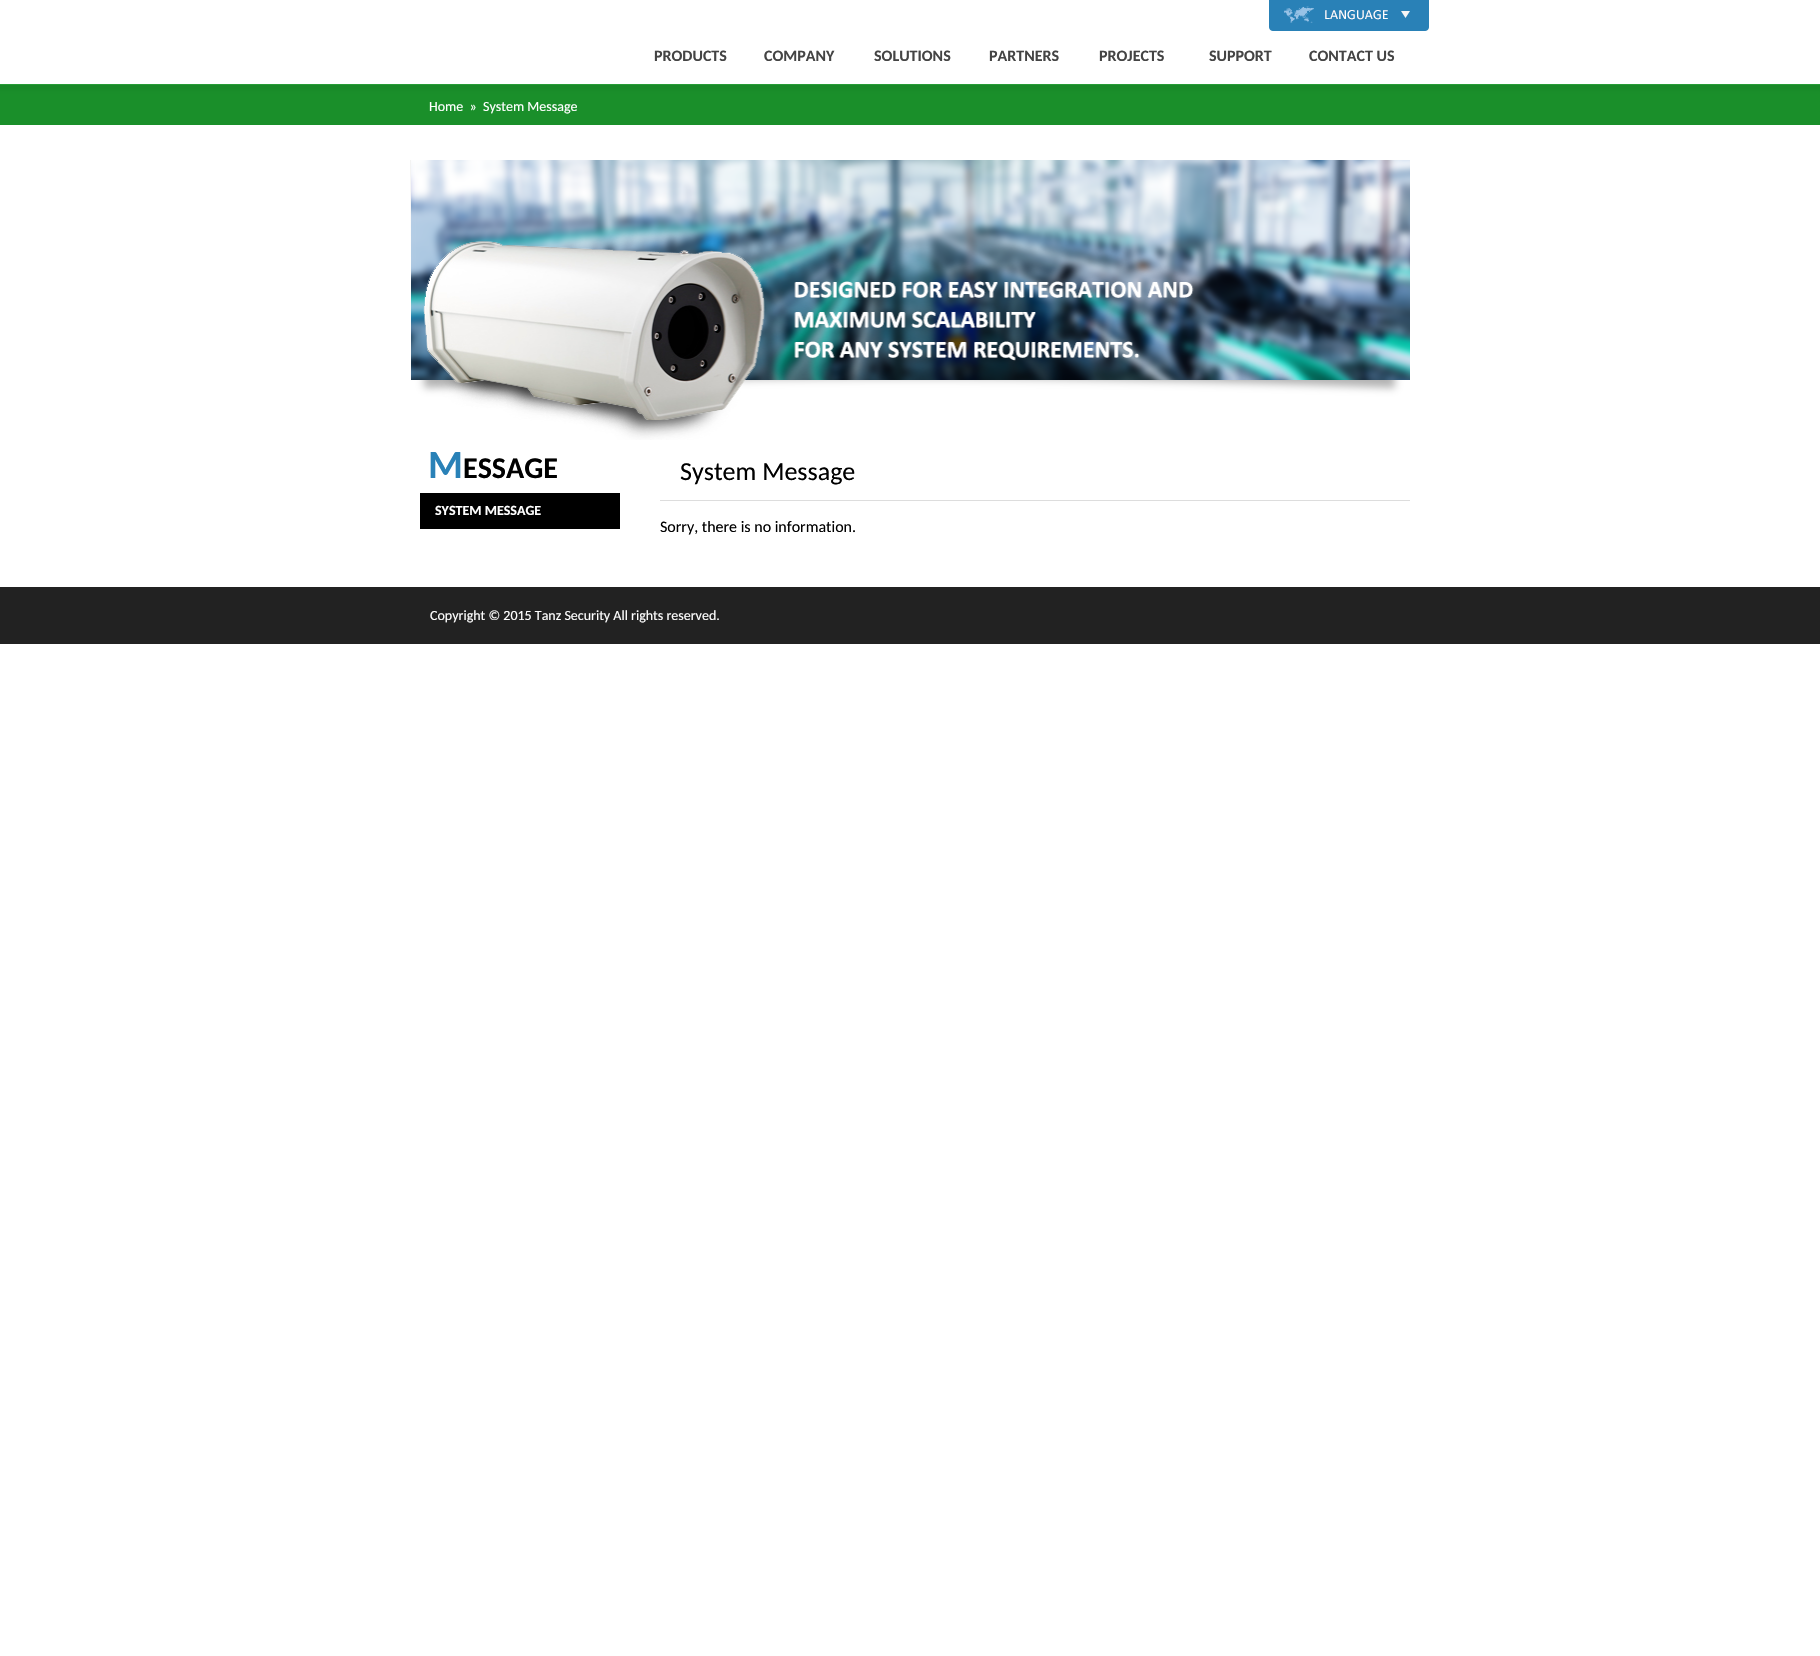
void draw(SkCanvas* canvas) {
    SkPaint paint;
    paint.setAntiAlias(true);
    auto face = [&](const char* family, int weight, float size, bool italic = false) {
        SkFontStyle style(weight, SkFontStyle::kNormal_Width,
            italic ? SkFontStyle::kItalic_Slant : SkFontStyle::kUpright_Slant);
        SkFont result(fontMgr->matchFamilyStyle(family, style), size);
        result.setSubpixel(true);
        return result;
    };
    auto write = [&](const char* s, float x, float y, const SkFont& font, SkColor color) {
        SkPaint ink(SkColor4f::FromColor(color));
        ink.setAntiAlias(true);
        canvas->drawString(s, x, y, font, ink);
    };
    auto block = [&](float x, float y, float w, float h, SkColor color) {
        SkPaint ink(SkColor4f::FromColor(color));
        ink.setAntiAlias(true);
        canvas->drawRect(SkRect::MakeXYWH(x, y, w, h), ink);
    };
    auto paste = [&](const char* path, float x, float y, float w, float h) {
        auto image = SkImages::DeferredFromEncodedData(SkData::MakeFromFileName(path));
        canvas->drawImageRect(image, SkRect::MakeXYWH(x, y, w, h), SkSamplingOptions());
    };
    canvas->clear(SK_ColorWHITE);
    block(0, 84, 1820, 1, SkColorSetRGB(39, 156, 55));
    paste("pic1.png", 1269, 0, 160, 31);
    auto kFont1 = face("Carlito", 700, 16);
    write("PRODUCTS", 654, 61, kFont1, SkColorSetRGB(68, 68, 68));
    write("COMPANY", 764, 61, kFont1, SkColorSetRGB(68, 68, 68));
    write("SOLUTIONS", 874, 61, kFont1, SkColorSetRGB(68, 68, 68));
    write("PARTNERS", 989, 61, kFont1, SkColorSetRGB(68, 68, 68));
    write("PROJECTS", 1099, 61, kFont1, SkColorSetRGB(68, 68, 68));
    write("SUPPORT", 1209, 61, kFont1, SkColorSetRGB(68, 68, 68));
    write("CONTACT US", 1309, 61, kFont1, SkColorSetRGB(68, 68, 68));
    paste("pic2.png", 0, 85, 1820, 40);
    auto kFont2 = face("Carlito", 400, 14);
    write("Home  »  System Message", 429, 111, kFont2, SK_ColorWHITE);
    paste("pic3.png", 410, 160, 1000, 280);
    auto kFont3 = face("Carlito", 700, 40);
    write("M", 428, 478, kFont3, SkColorSetRGB(41, 129, 183));
    auto kFont4 = face("Carlito", 700, 30);
    write("ESSAGE", 463, 478, kFont4, SK_ColorBLACK);
    block(420, 493, 200, 36, SK_ColorBLACK);
    auto kFont5 = face("Carlito", 700, 14);
    write("SYSTEM MESSAGE", 435, 515, kFont5, SK_ColorWHITE);
    block(660, 500, 750, 1, SkColorSetRGB(221, 221, 221));
    auto kFont6 = face("Carlito", 400, 26);
    write("System Message", 680, 480, kFont6, SK_ColorBLACK);
    auto kFont7 = face("Carlito", 400, 16);
    write("Sorry, there is no information.", 660, 532, kFont7, SK_ColorBLACK);
    block(0, 587, 1820, 57, SkColorSetRGB(34, 34, 34));
    write("Copyright © 2015 Tanz Security All rights reserved.", 430, 620, kFont2, SK_ColorWHITE);
}
